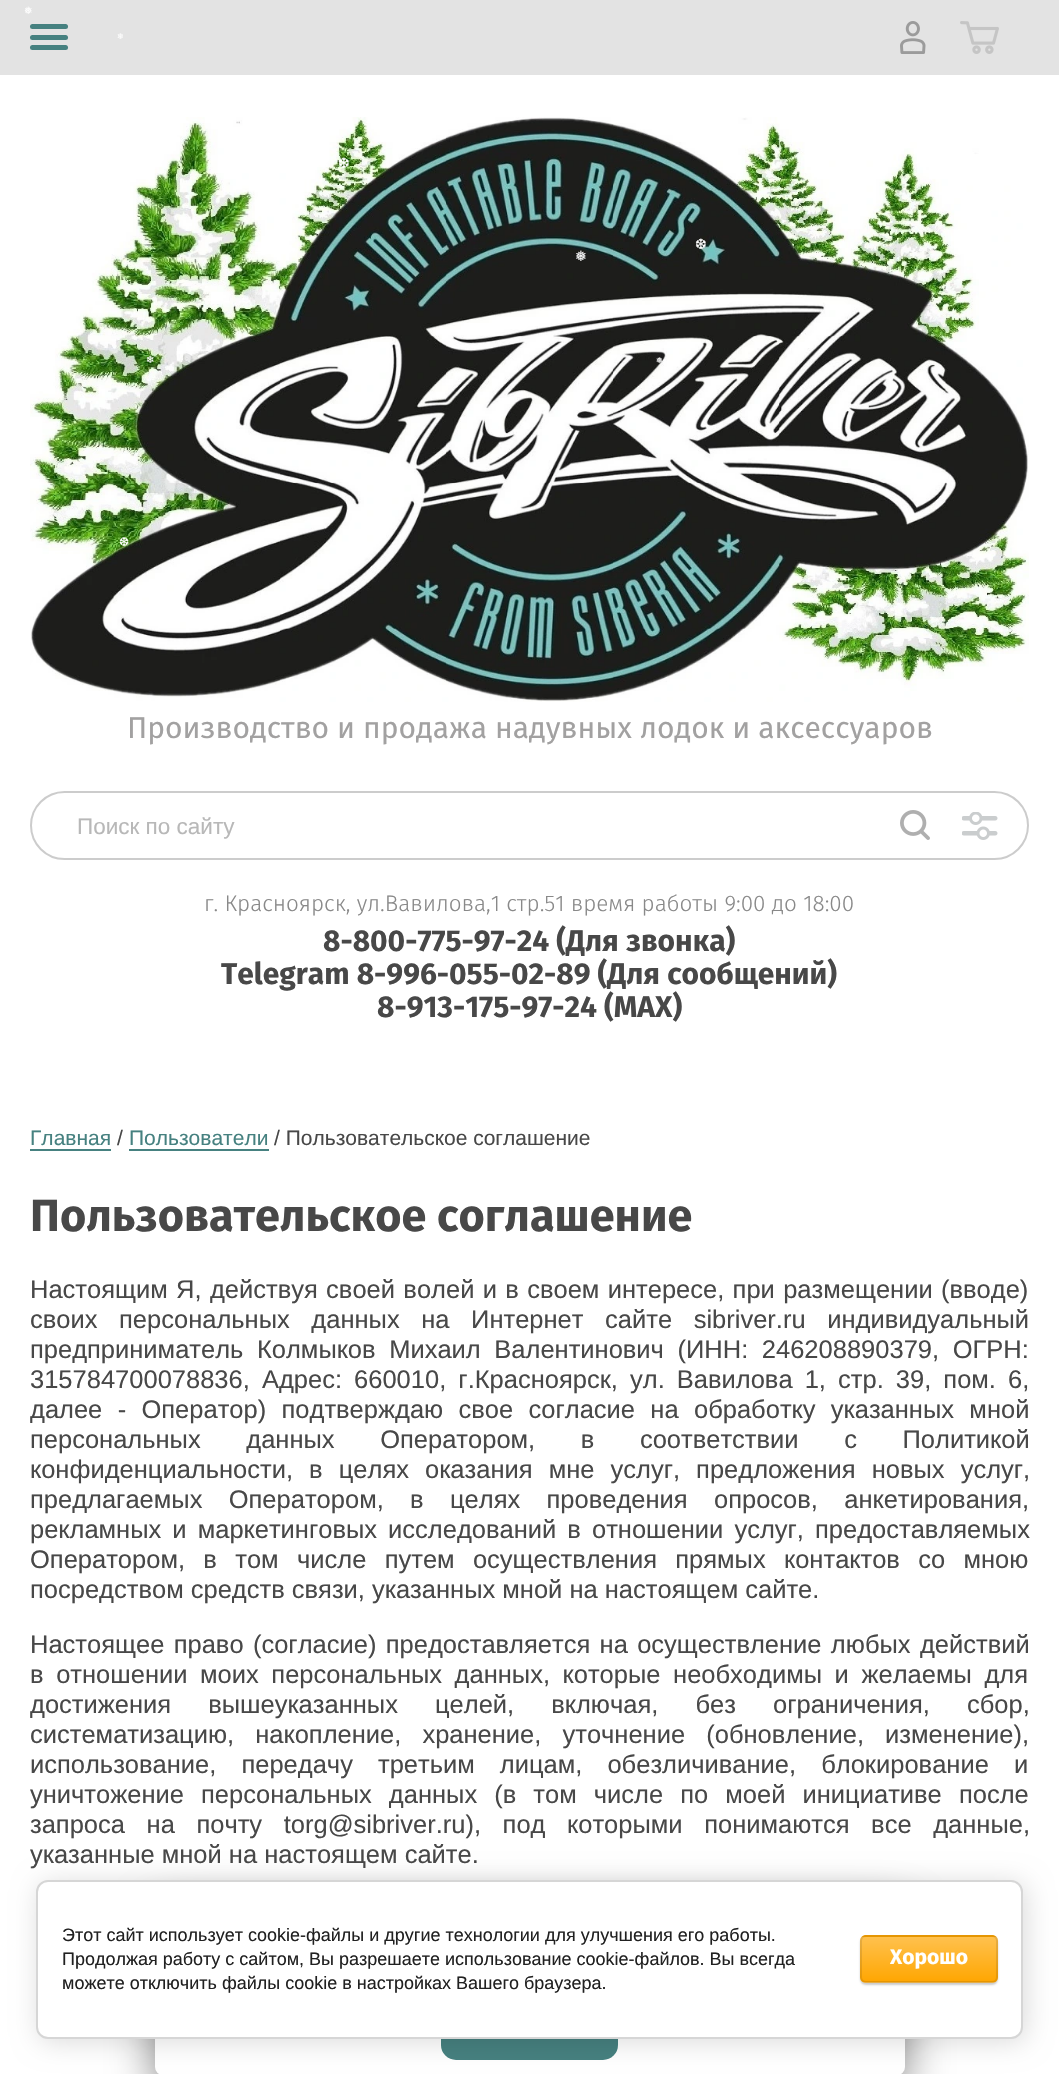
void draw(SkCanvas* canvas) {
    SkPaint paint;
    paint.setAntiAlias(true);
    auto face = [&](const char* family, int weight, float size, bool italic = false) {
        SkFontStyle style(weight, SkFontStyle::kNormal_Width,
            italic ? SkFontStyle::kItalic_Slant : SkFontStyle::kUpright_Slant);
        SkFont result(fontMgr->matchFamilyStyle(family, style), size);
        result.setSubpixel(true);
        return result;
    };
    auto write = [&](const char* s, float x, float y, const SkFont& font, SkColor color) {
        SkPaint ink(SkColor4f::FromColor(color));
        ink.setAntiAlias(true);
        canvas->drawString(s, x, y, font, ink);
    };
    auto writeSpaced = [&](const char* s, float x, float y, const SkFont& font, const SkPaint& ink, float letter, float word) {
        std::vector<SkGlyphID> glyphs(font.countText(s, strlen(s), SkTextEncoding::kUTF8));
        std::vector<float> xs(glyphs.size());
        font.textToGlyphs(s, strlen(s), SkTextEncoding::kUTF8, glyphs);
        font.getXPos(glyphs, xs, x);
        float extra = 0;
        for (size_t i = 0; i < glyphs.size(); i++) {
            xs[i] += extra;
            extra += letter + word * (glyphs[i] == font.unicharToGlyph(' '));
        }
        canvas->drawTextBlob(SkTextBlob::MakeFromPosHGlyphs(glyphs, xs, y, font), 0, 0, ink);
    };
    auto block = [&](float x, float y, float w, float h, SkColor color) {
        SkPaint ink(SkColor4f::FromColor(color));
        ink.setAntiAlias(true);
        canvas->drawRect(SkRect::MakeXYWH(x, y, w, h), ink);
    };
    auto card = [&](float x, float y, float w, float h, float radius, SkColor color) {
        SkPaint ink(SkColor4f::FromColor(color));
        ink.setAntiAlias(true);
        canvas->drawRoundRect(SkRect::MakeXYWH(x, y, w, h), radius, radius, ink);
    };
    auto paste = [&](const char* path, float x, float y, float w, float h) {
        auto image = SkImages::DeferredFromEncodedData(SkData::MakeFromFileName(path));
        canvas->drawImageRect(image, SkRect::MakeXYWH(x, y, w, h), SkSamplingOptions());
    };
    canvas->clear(SK_ColorWHITE);
    block(0, 0, 1059, 75, SkColorSetRGB(227, 227, 227));
    auto kFont1 = face("DejaVu Sans", 400, 10);
    write("❅", 24, 14, kFont1, SK_ColorWHITE);
    auto kFont2 = face("DejaVu Sans", 400, 8);
    write("❄", 117, 39, kFont2, SK_ColorWHITE);
    paste("pic3.png", 30, 117, 999, 585);
    auto kFont3 = face("DejaVu Sans", 400, 14);
    write("❆", 338, 168, kFont3, SK_ColorWHITE);
    write("❆", 695, 249, kFont3, SK_ColorWHITE);
    write("❅", 575, 261, kFont3, SK_ColorWHITE);
    write("❄", 146, 363, kFont1, SK_ColorWHITE);
    write("❅", 656, 363, kFont2, SK_ColorWHITE);
    auto kFont4 = face("DejaVu Sans", 400, 12);
    write("❆", 119, 546, kFont4, SK_ColorWHITE);
    card(30, 24, 38, 5, 2.5f, SkColorSetRGB(70, 129, 128));
    card(30, 35, 38, 5, 2.5f, SkColorSetRGB(70, 129, 128));
    card(30, 45, 38, 5, 2.5f, SkColorSetRGB(70, 129, 128));
    paste("pic1.png", 900, 21, 26, 33);
    paste("pic2.png", 960, 21, 39, 33);
    auto kFont5 = face("Fira Sans", 400, 30);
    write("Производство и продажа надувных лодок и аксессуаров", 127, 738, kFont5, SkColorSetRGB(162, 161, 161));
    paint.setStyle(SkPaint::kStroke_Style);
    paint.setStrokeWidth(2);
    paint.setColor(SkColorSetRGB(204, 204, 204));
    canvas->drawRoundRect(SkRect::MakeXYWH(31, 792, 997, 67), 33.5f, 33.5f, paint);
    auto kFont6 = face("Liberation Sans", 400, 22.5f);
    write("Поиск по сайту", 77, 834, kFont6, SkColorSetRGB(184, 184, 184));
    paste("pic4.png", 900, 810, 30, 30);
    paste("pic5.png", 962, 812, 36, 28);
    auto kFont7 = face("Fira Sans", 300, 22.5f);
    write("г. Красноярск, ул.Вавилова,1 стр.51 время работы 9:00 до 18:00", 204, 911, kFont7, SkColorSetRGB(137, 137, 137));
    auto kFont8 = face("Fira Sans", 700, 30);
    write("8-800-775-97-24 (Для звонка)", 323, 951, kFont8, SkColorSetRGB(72, 72, 72));
    write("Telegram 8-996-055-02-89 (Для сообщений)", 221, 984, kFont8, SkColorSetRGB(72, 72, 72));
    write("8-913-175-97-24 (MAX)", 377, 1017, kFont8, SkColorSetRGB(72, 72, 72));
    auto kFont9 = face("Liberation Sans", 400, 21);
    write("Главная", 30, 1145, kFont9, SkColorSetRGB(70, 129, 128));
    block(30, 1149, 81, 2, SkColorSetRGB(70, 129, 128));
    write("/", 117, 1145, kFont9, SkColorSetRGB(72, 72, 72));
    write("Пользователи", 129, 1145, kFont9, SkColorSetRGB(70, 129, 128));
    block(129, 1149, 140, 2, SkColorSetRGB(70, 129, 128));
    write("/ Пользовательское соглашение", 274, 1145, kFont9, SkColorSetRGB(72, 72, 72));
    auto kFont10 = face("Fira Sans", 700, 45);
    write("Пользовательское соглашение", 30, 1231, kFont10, SkColorSetRGB(72, 72, 72));
    auto kFont11 = face("Liberation Sans", 400, 25.5f);
    paint.setStyle(SkPaint::kFill_Style);
    paint.setColor(SkColorSetRGB(72, 72, 72));
    writeSpaced("Настоящим Я, действуя своей волей и в своем интересе, при размещении (вводе)", 30, 1298, kFont11, paint, 0, 1.25f);
    writeSpaced("своих персональных данных на Интернет сайте sibriver.ru индивидуальный", 30, 1328, kFont11, paint, 0, 14.5f);
    writeSpaced("предприниматель Колмыков Михаил Валентинович (ИНН: 246208890379, ОГРН:", 30, 1358, kFont11, paint, 0, 6.5f);
    writeSpaced("315784700078836, Адрес: 660010, г.Красноярск, ул. Вавилова 1, стр. 39, пом. 6,", 30, 1388, kFont11, paint, 0, 5);
    writeSpaced("далее - Оператор) подтверждаю свое согласие на обработку указанных мной", 30, 1418, kFont11, paint, 0, 8.25f);
    writeSpaced("персональных данных Оператором, в соответствии с Политикой", 30, 1448, kFont11, paint, 0, 38.5f);
    writeSpaced("конфиденциальности, в целях оказания мне услуг, предложения новых услуг,", 30, 1478, kFont11, paint, 0, 9);
    writeSpaced("предлагаемых Оператором, в целях проведения опросов, анкетирования,", 30, 1508, kFont11, paint, 0, 19.25f);
    writeSpaced("рекламных и маркетинговых исследований в отношении услуг, предоставляемых", 30, 1538, kFont11, paint, 0, 4);
    writeSpaced("Оператором, в том числе путем осуществления прямых контактов со мною", 30, 1568, kFont11, paint, 0, 11.25f);
    write("посредством средств связи, указанных мной на настоящем сайте.", 30, 1598, kFont11, SkColorSetRGB(72, 72, 72));
    writeSpaced("Настоящее право (согласие) предоставляется на осуществление любых действий", 30, 1653, kFont11, paint, 0, 2.25f);
    writeSpaced("в отношении моих персональных данных, которые необходимы и желаемы для", 30, 1683, kFont11, paint, 0, 5.5f);
    writeSpaced("достижения вышеуказанных целей, включая, без ограничения, сбор,", 30, 1713, kFont11, paint, 0, 30);
    writeSpaced("систематизацию, накопление, хранение, уточнение (обновление, изменение),", 30, 1743, kFont11, paint, 0, 14);
    writeSpaced("использование, передачу третьим лицам, обезличивание, блокирование и", 30, 1773, kFont11, paint, 0, 18);
    writeSpaced("уничтожение персональных данных (в том числе по моей инициативе после", 30, 1803, kFont11, paint, 0, 10);
    writeSpaced("запроса на почту torg@sibriver.ru), под которыми понимаются все данные,", 30, 1833, kFont11, paint, 0, 14.5f);
    write("указанные мной на настоящем сайте.", 30, 1863, kFont11, SkColorSetRGB(72, 72, 72));
    paint.setColor(SkColorSetARGB(128, 0, 0, 0));
    paint.setMaskFilter(SkMaskFilter::MakeBlur(kNormal_SkBlurStyle, 22));
    canvas->drawRoundRect(SkRect::MakeXYWH(155, 1911, 750, 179), 8, 8, paint);
    paint.setMaskFilter(nullptr);
    card(155, 1896, 750, 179, 8, SK_ColorWHITE);
    card(441, 2000, 177, 60, 15, SkColorSetRGB(70, 129, 128));
    paint.setColor(SkColorSetARGB(36, 0, 0, 0));
    paint.setMaskFilter(SkMaskFilter::MakeBlur(kNormal_SkBlurStyle, 13.5f));
    canvas->drawRoundRect(SkRect::MakeXYWH(39, 1883, 987, 159), 12, 12, paint);
    paint.setMaskFilter(nullptr);
    paint.setColor(SK_ColorWHITE);
    canvas->drawRoundRect(SkRect::MakeXYWH(37, 1881, 985, 157), 11, 11, paint);
    paint.setStyle(SkPaint::kStroke_Style);
    paint.setColor(SkColorSetRGB(214, 214, 214));
    canvas->drawRoundRect(SkRect::MakeXYWH(37, 1881, 985, 157), 11, 11, paint);
    auto kFont12 = face("Liberation Sans", 400, 18);
    write("Этот сайт использует cookie-файлы и другие технологии для улучшения его работы.", 62, 1941, kFont12, SkColorSetRGB(33, 33, 33));
    write("Продолжая работу с сайтом, Вы разрешаете использование cookie-файлов. Вы всегда", 62, 1965, kFont12, SkColorSetRGB(33, 33, 33));
    write("можете отключить файлы cookie в настройках Вашего браузера.", 62, 1989, kFont12, SkColorSetRGB(33, 33, 33));
    paint.setStyle(SkPaint::kFill_Style);
    paint.setColor(SkColorSetARGB(51, 0, 0, 0));
    paint.setMaskFilter(SkMaskFilter::MakeBlur(kNormal_SkBlurStyle, 1));
    canvas->drawRoundRect(SkRect::MakeXYWH(860, 1937, 138, 48), 6, 6, paint);
    paint.setMaskFilter(nullptr);
    canvas->save();
    canvas->clipPath(SkPathBuilder().moveTo(866, 1935).lineTo(992, 1935).cubicTo(995.5f, 1935, 998, 1937.5f, 998, 1941).lineTo(998, 1977).cubicTo(998, 1980.5f, 995.5f, 1983, 992, 1983).lineTo(866, 1983).cubicTo(862.5f, 1983, 860, 1980.5f, 860, 1977).lineTo(860, 1941).cubicTo(860, 1937.5f, 862.5f, 1935, 866, 1935).close().detach(), true);
    {
        const SkColor colors[] = {SkColorSetRGB(255, 193, 78), SkColorSetRGB(255, 166, 1)};
        const float stops[] = {0, 1};
        const SkPoint ends[] = {{929, 1892}, {929, 1937}};
        paint.setShader(SkGradientShader::MakeLinear(ends, colors, stops, 2, SkTileMode::kClamp));
        paint.setAlpha(255);
    }
    canvas->drawRect(SkRect::MakeXYWH(860, 1935, 138, 2), paint);
    {
        const SkColor colors[] = {SkColorSetRGB(255, 193, 78), SkColorSetRGB(255, 166, 1)};
        const float stops[] = {0, 1};
        const SkPoint ends[] = {{929, 1937}, {929, 1982}};
        paint.setShader(SkGradientShader::MakeLinear(ends, colors, stops, 2, SkTileMode::kClamp));
        paint.setAlpha(255);
    }
    canvas->drawRect(SkRect::MakeXYWH(860, 1937, 138, 45), paint);
    {
        const SkColor colors[] = {SkColorSetRGB(255, 193, 78), SkColorSetRGB(255, 166, 1)};
        const float stops[] = {0, 1};
        const SkPoint ends[] = {{929, 1982}, {929, 2027}};
        paint.setShader(SkGradientShader::MakeLinear(ends, colors, stops, 2, SkTileMode::kClamp));
        paint.setAlpha(255);
    }
    canvas->drawRect(SkRect::MakeXYWH(860, 1982, 138, 1), paint);
    canvas->restore();
    paint.setStyle(SkPaint::kStroke_Style);
    paint.setShader(nullptr);
    paint.setColor(SkColorSetARGB(26, 0, 0, 0));
    canvas->drawRoundRect(SkRect::MakeXYWH(861, 1936, 136, 46), 5, 5, paint);
    auto kFont13 = face("Fira Sans", 700, 21);
    write("Хорошо", 890, 1964, kFont13, SK_ColorWHITE);
}
